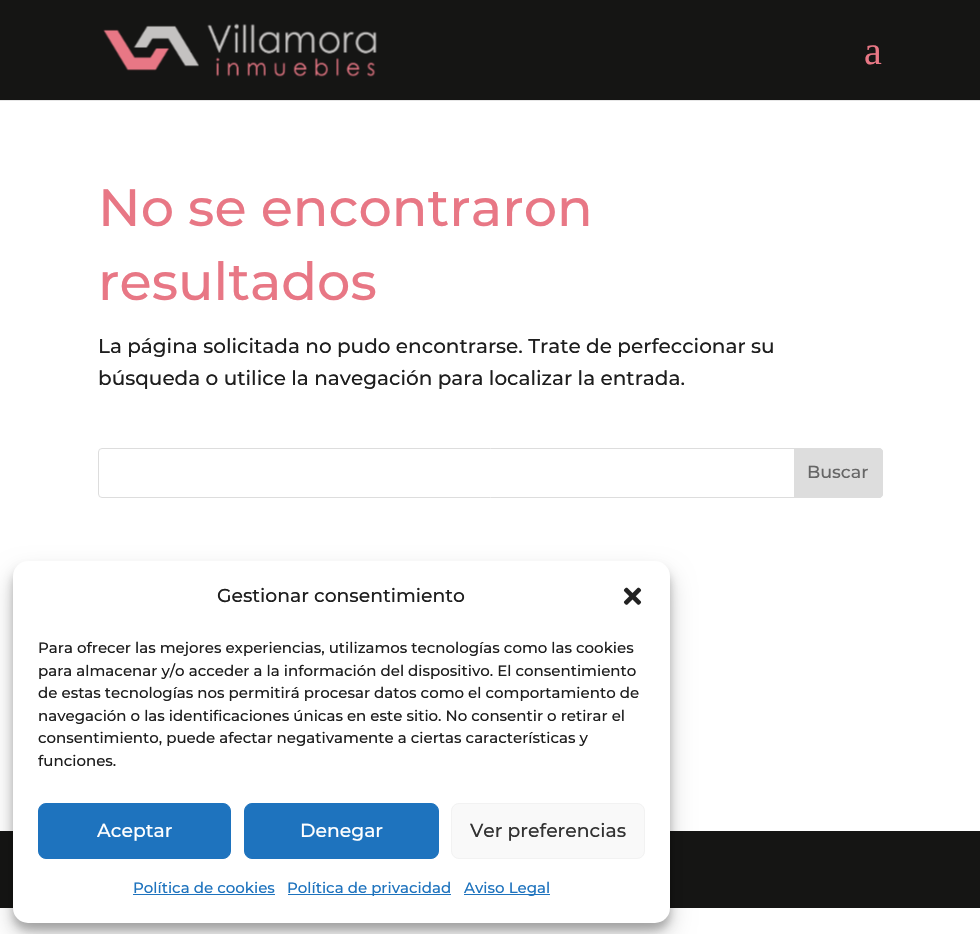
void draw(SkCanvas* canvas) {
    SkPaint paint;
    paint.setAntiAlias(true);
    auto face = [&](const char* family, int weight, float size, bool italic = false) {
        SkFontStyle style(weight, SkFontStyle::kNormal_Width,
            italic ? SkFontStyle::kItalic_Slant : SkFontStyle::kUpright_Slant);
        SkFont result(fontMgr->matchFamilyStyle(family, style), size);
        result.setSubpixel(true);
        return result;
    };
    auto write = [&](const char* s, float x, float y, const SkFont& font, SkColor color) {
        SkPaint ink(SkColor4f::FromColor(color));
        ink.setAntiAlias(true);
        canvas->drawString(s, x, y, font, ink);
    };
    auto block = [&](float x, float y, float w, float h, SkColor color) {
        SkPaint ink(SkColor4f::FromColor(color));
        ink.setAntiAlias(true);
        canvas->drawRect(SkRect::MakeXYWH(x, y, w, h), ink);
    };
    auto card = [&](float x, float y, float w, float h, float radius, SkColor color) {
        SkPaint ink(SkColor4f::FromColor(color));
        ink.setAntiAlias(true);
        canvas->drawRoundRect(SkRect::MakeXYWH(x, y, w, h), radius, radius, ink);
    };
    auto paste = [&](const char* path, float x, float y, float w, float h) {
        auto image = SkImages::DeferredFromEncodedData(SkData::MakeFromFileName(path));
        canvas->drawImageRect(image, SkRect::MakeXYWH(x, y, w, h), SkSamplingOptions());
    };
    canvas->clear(SK_ColorWHITE);
    block(0, 100, 980, 1, SkColorSetRGB(230, 230, 230));
    block(0, 0, 980, 100, SkColorSetRGB(21, 21, 20));
    paste("pic1.png", 103, 23, 274, 54);
    auto kFont1 = face("Liberation Serif", 400, 40);
    write("a", 864, 64, kFont1, SkColorSetRGB(232, 119, 133));
    auto kFont2 = face("Montserrat", 500, 52.5f);
    write("No se encontraron", 98, 226, kFont2, SkColorSetRGB(232, 119, 133));
    write("resultados", 98, 300, kFont2, SkColorSetRGB(232, 119, 133));
    auto kFont3 = face("Montserrat", 500, 20);
    write("La página solicitada no pudo encontrarse. Trate de perfeccionar su", 98, 353, kFont3, SkColorSetRGB(30, 30, 30));
    write("búsqueda o utilice la navegación para localizar la entrada.", 98, 385, kFont3, SkColorSetRGB(30, 30, 30));
    paint.setStyle(SkPaint::kStroke_Style);
    paint.setStrokeWidth(1);
    paint.setColor(SkColorSetRGB(221, 221, 221));
    canvas->drawRoundRect(SkRect::MakeXYWH(98.5f, 448.5f, 784, 49), 3.5f, 3.5f, paint);
    paint.setStyle(SkPaint::kFill_Style);
    canvas->drawPath(SkPathBuilder().moveTo(794.5f, 448.5f).lineTo(879, 448.5f).cubicTo(881, 448.5f, 882.5f, 450, 882.5f, 452).lineTo(882.5f, 494).cubicTo(882.5f, 496, 881, 497.5f, 879, 497.5f).lineTo(794.5f, 497.5f).close().detach(), paint);
    paint.setStyle(SkPaint::kStroke_Style);
    canvas->drawPath(SkPathBuilder().moveTo(794.5f, 448.5f).lineTo(879, 448.5f).cubicTo(881, 448.5f, 882.5f, 450, 882.5f, 452).lineTo(882.5f, 494).cubicTo(882.5f, 496, 881, 497.5f, 879, 497.5f).lineTo(794.5f, 497.5f).close().detach(), paint);
    auto kFont4 = face("Montserrat", 500, 17.5f);
    write("Buscar", 807, 478, kFont4, SkColorSetRGB(102, 102, 102));
    block(0, 831, 980, 77, SkColorSetRGB(21, 21, 20));
    paint.setStyle(SkPaint::kFill_Style);
    paint.setColor(SkColorSetARGB(59, 0, 0, 0));
    paint.setMaskFilter(SkMaskFilter::MakeBlur(kNormal_SkBlurStyle, 4));
    canvas->drawRoundRect(SkRect::MakeXYWH(13, 569, 657, 361), 15, 15, paint);
    paint.setMaskFilter(nullptr);
    paint.setColor(SkColorSetARGB(48, 0, 0, 0));
    paint.setMaskFilter(SkMaskFilter::MakeBlur(kNormal_SkBlurStyle, 12.5f));
    canvas->drawRoundRect(SkRect::MakeXYWH(13, 574, 657, 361), 15, 15, paint);
    paint.setMaskFilter(nullptr);
    card(13, 561, 657, 362, 15, SK_ColorWHITE);
    auto kFont5 = face("Montserrat", 500, 18.75f);
    write("Gestionar consentimiento", 217, 602, kFont5, SkColorSetRGB(30, 30, 30));
    paste("pic2.png", 623, 587, 19, 18);
    auto kFont6 = face("Montserrat", 500, 15);
    write("Para ofrecer las mejores experiencias, utilizamos tecnologías como las cookies", 38, 653, kFont6, SkColorSetRGB(30, 30, 30));
    write("para almacenar y/o acceder a la información del dispositivo. El consentimiento", 38, 676, kFont6, SkColorSetRGB(30, 30, 30));
    write("de estas tecnologías nos permitirá procesar datos como el comportamiento de", 38, 698, kFont6, SkColorSetRGB(30, 30, 30));
    write("navegación o las identificaciones únicas en este sitio. No consentir o retirar el", 38, 721, kFont6, SkColorSetRGB(30, 30, 30));
    write("consentimiento, puede afectar negativamente a ciertas características y", 38, 743, kFont6, SkColorSetRGB(30, 30, 30));
    write("funciones.", 38, 766, kFont6, SkColorSetRGB(30, 30, 30));
    paint.setColor(SkColorSetRGB(30, 115, 190));
    canvas->drawRoundRect(SkRect::MakeXYWH(38.5f, 803.5f, 192, 55), 7.5f, 7.5f, paint);
    paint.setStyle(SkPaint::kStroke_Style);
    canvas->drawRoundRect(SkRect::MakeXYWH(38.5f, 803.5f, 192, 55), 7.5f, 7.5f, paint);
    write("Aceptar", 97, 837, kFont5, SK_ColorWHITE);
    paint.setStyle(SkPaint::kFill_Style);
    canvas->drawRoundRect(SkRect::MakeXYWH(244.5f, 803.5f, 194, 55), 7.5f, 7.5f, paint);
    paint.setStyle(SkPaint::kStroke_Style);
    canvas->drawRoundRect(SkRect::MakeXYWH(244.5f, 803.5f, 194, 55), 7.5f, 7.5f, paint);
    write("Denegar", 300, 837, kFont5, SK_ColorWHITE);
    paint.setStyle(SkPaint::kFill_Style);
    paint.setColor(SkColorSetRGB(249, 249, 249));
    canvas->drawRoundRect(SkRect::MakeXYWH(451.5f, 803.5f, 193, 55), 7.5f, 7.5f, paint);
    paint.setStyle(SkPaint::kStroke_Style);
    paint.setColor(SkColorSetRGB(242, 242, 242));
    canvas->drawRoundRect(SkRect::MakeXYWH(451.5f, 803.5f, 193, 55), 7.5f, 7.5f, paint);
    write("Ver preferencias", 470, 837, kFont5, SkColorSetRGB(51, 51, 51));
    write("Política de cookies", 133, 893, kFont6, SkColorSetRGB(30, 115, 190));
    block(133, 894, 142, 1, SkColorSetRGB(30, 115, 190));
    block(288, 894, 163, 1, SkColorSetRGB(30, 115, 190));
    write("Política de privacidad", 287, 893, kFont6, SkColorSetRGB(30, 115, 190));
    block(464, 894, 86, 1, SkColorSetRGB(30, 115, 190));
    write("Aviso Legal", 464, 893, kFont6, SkColorSetRGB(30, 115, 190));
}
